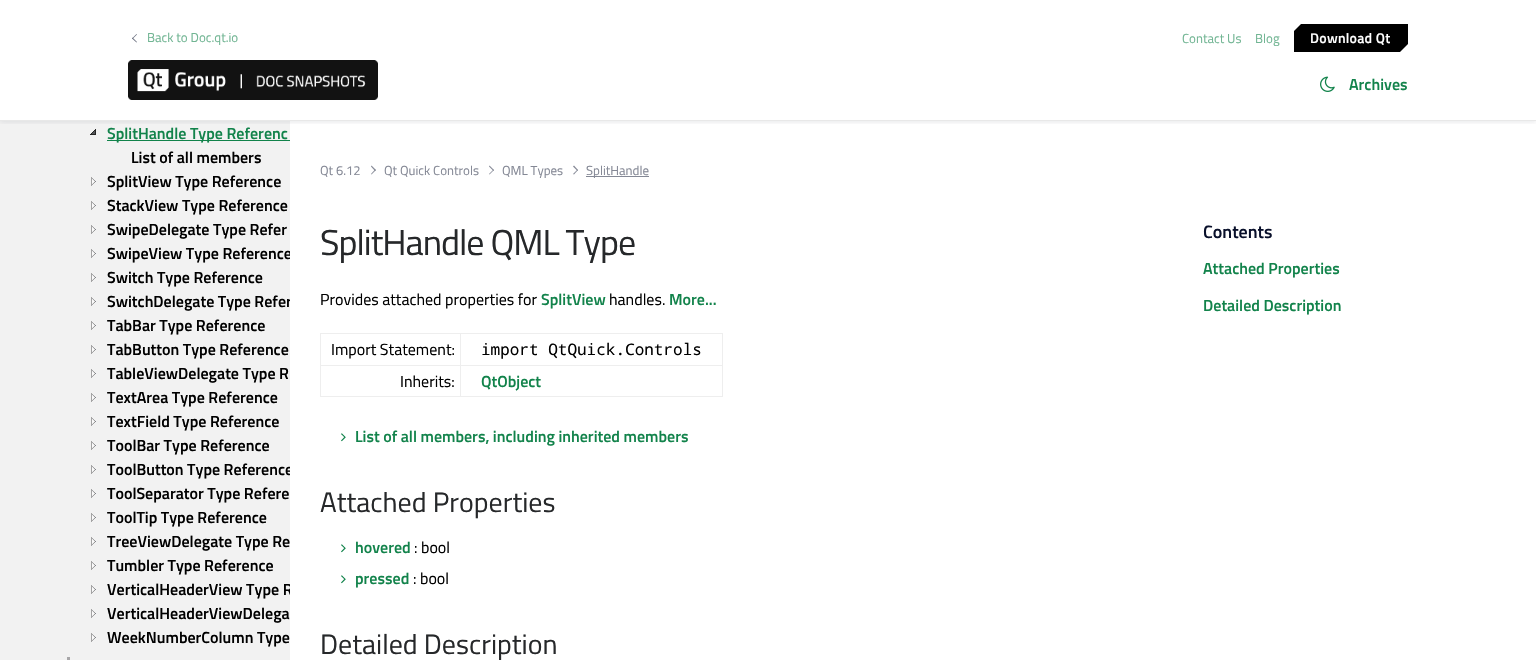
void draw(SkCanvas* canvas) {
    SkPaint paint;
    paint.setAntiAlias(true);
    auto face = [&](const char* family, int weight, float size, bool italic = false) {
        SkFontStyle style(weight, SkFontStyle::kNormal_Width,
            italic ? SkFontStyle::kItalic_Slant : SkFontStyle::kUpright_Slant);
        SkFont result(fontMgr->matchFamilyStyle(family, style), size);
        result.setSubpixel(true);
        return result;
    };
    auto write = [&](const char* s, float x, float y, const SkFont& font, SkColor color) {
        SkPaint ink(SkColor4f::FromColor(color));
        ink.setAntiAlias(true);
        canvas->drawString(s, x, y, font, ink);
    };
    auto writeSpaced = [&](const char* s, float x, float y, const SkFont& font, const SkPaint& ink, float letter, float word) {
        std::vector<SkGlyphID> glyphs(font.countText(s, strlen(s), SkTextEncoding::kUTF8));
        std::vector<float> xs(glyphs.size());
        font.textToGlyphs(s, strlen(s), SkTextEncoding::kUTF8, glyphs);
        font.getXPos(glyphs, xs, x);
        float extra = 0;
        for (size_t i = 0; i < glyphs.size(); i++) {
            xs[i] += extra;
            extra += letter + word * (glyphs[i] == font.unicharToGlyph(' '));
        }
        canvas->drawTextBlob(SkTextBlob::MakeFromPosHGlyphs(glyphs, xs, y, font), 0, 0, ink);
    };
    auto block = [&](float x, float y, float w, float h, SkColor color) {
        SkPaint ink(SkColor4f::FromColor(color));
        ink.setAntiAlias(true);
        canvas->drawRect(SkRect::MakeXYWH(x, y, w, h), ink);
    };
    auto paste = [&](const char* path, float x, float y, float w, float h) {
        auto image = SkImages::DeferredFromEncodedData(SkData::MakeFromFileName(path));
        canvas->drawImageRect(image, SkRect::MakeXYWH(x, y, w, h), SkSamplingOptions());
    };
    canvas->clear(SK_ColorWHITE);
    block(0, 121, 290, 539, SkColorSetRGB(242, 242, 242));
    paste("pic3.png", 90, 129, 6, 6);
    canvas->save();
    canvas->clipRect(SkRect::MakeXYWH(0, 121, 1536, 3));
    paint.setColor(SkColorSetARGB(26, 9, 16, 43));
    paint.setMaskFilter(SkMaskFilter::MakeBlur(kNormal_SkBlurStyle, 2.5f));
    canvas->drawRect(SkRect::MakeXYWH(0, 1, 1536, 121), paint);
    paint.setMaskFilter(nullptr);
    canvas->restore();
    block(0, 120, 1536, 1, SkColorSetRGB(232, 232, 232));
    paint.setColor(SkColorSetRGB(107, 112, 128));
    canvas->drawPath(SkPathBuilder().moveTo(137, 42).lineTo(136.5f, 42.5f).lineTo(132, 38.5f).lineTo(132.5f, 37.5f).close().detach(), paint);
    canvas->drawPath(SkPathBuilder().moveTo(137, 34.5f).lineTo(132.5f, 39).lineTo(132, 38.5f).lineTo(136.5f, 34).close().detach(), paint);
    auto kFont1 = face("Titillium Web", 400, 13);
    write("Back to Doc.qt.io", 147, 42, kFont1, SkColorSetRGB(113, 181, 147));
    write("Contact Us", 1182, 43, kFont1, SkColorSetRGB(113, 181, 147));
    write("Blog", 1255, 43, kFont1, SkColorSetRGB(113, 181, 147));
    paint.setColor(SK_ColorBLACK);
    canvas->drawPath(SkPathBuilder().moveTo(1294, 31).lineTo(1301, 24).lineTo(1408, 24).lineTo(1408, 44).lineTo(1400, 52).lineTo(1294, 52).close().detach(), paint);
    auto kFont2 = face("Titillium Web", 600, 14);
    paint.setColor(SK_ColorWHITE);
    writeSpaced("Download Qt", 1310, 43, kFont2, paint, 0.25f, 0);
    paste("pic1.png", 128, 60, 250, 40);
    paste("pic2.png", 1320, 76, 15, 16);
    auto kFont3 = face("Titillium Web", 600, 16);
    write("Archives", 1349, 90, kFont3, SkColorSetRGB(18, 131, 75));
    block(107, 140, 183, 1, SkColorSetRGB(18, 131, 75));
    write("SplitHandle Type Referenc", 107, 139, kFont3, SkColorSetRGB(18, 131, 75));
    write("List of all members", 131, 163, kFont3, SK_ColorBLACK);
    paste("pic4.png", 91, 177, 5, 9);
    write("SplitView Type Reference", 107, 187, kFont3, SK_ColorBLACK);
    paste("pic4.png", 91, 201, 5, 9);
    write("StackView Type Reference", 107, 211, kFont3, SK_ColorBLACK);
    paste("pic4.png", 91, 225, 5, 9);
    write("SwipeDelegate Type Refer", 107, 235, kFont3, SK_ColorBLACK);
    paste("pic4.png", 91, 249, 5, 9);
    canvas->save();
    canvas->clipRect(SkRect::MakeXYWH(0, 121, 290, 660));
    write("SwipeView Type Reference", 107, 259, kFont3, SK_ColorBLACK);
    canvas->restore();
    paste("pic4.png", 91, 273, 5, 9);
    write("Switch Type Reference", 107, 283, kFont3, SK_ColorBLACK);
    paste("pic4.png", 91, 297, 5, 9);
    canvas->save();
    canvas->clipRect(SkRect::MakeXYWH(0, 121, 290, 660));
    write("SwitchDelegate Type Refer", 107, 307, kFont3, SK_ColorBLACK);
    canvas->restore();
    paste("pic4.png", 91, 321, 5, 9);
    write("TabBar Type Reference", 107, 331, kFont3, SK_ColorBLACK);
    paste("pic4.png", 91, 345, 5, 9);
    write("TabButton Type Reference", 107, 355, kFont3, SK_ColorBLACK);
    paste("pic4.png", 91, 369, 5, 9);
    write("TableViewDelegate Type R", 107, 379, kFont3, SK_ColorBLACK);
    paste("pic4.png", 91, 393, 5, 9);
    write("TextArea Type Reference", 107, 403, kFont3, SK_ColorBLACK);
    paste("pic4.png", 91, 417, 5, 9);
    write("TextField Type Reference", 107, 427, kFont3, SK_ColorBLACK);
    paste("pic4.png", 91, 441, 5, 9);
    write("ToolBar Type Reference", 107, 451, kFont3, SK_ColorBLACK);
    paste("pic4.png", 91, 465, 5, 9);
    canvas->save();
    canvas->clipRect(SkRect::MakeXYWH(0, 121, 290, 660));
    write("ToolButton Type Reference", 107, 475, kFont3, SK_ColorBLACK);
    canvas->restore();
    paste("pic4.png", 91, 489, 5, 9);
    write("ToolSeparator Type Refere", 107, 499, kFont3, SK_ColorBLACK);
    paste("pic4.png", 91, 513, 5, 9);
    write("ToolTip Type Reference", 107, 523, kFont3, SK_ColorBLACK);
    paste("pic4.png", 91, 537, 5, 9);
    write("TreeViewDelegate Type Re", 107, 547, kFont3, SK_ColorBLACK);
    paste("pic4.png", 91, 561, 5, 9);
    write("Tumbler Type Reference", 107, 571, kFont3, SK_ColorBLACK);
    paste("pic4.png", 91, 585, 5, 9);
    canvas->save();
    canvas->clipRect(SkRect::MakeXYWH(0, 121, 290, 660));
    write("VerticalHeaderView Type R", 107, 595, kFont3, SK_ColorBLACK);
    canvas->restore();
    paste("pic4.png", 91, 609, 5, 9);
    write("VerticalHeaderViewDelega", 107, 619, kFont3, SK_ColorBLACK);
    paste("pic4.png", 91, 633, 5, 9);
    write("WeekNumberColumn Type", 107, 643, kFont3, SK_ColorBLACK);
    block(67, 657, 3, 3, SkColorSetRGB(168, 167, 169));
    write("Qt 6.12", 320, 175, kFont1, SkColorSetRGB(132, 136, 149));
    paint.setColor(SkColorSetRGB(132, 136, 149));
    canvas->drawPath(SkPathBuilder().moveTo(371, 166.5f).lineTo(371.5f, 165.5f).lineTo(376, 170).lineTo(375, 171).close().detach(), paint);
    canvas->drawPath(SkPathBuilder().moveTo(371, 174).lineTo(375, 169.5f).lineTo(376, 170).lineTo(371.5f, 174.5f).close().detach(), paint);
    write("Qt Quick Controls", 384, 175, kFont1, SkColorSetRGB(132, 136, 149));
    canvas->drawPath(SkPathBuilder().moveTo(489, 166.5f).lineTo(489.5f, 165.5f).lineTo(494, 170).lineTo(493.5f, 171).close().detach(), paint);
    canvas->drawPath(SkPathBuilder().moveTo(489, 174).lineTo(493.5f, 169.5f).lineTo(494, 170).lineTo(489.5f, 174.5f).close().detach(), paint);
    write("QML Types", 502, 175, kFont1, SkColorSetRGB(132, 136, 149));
    canvas->drawPath(SkPathBuilder().moveTo(573, 166.5f).lineTo(574, 165.5f).lineTo(578, 170).lineTo(577.5f, 171).close().detach(), paint);
    canvas->drawPath(SkPathBuilder().moveTo(573, 174).lineTo(577.5f, 169.5f).lineTo(578, 170).lineTo(574, 174.5f).close().detach(), paint);
    block(586, 176, 63, 1, SkColorSetRGB(132, 136, 149));
    write("SplitHandle", 586, 175, kFont1, SkColorSetRGB(132, 136, 149));
    auto kFont4 = face("Titillium Web", 400, 36);
    paint.setColor(SkColorSetRGB(38, 40, 42));
    writeSpaced("SplitHandle QML Type", 320, 255, kFont4, paint, -1, 0);
    auto kFont5 = face("Titillium Web", 400, 16);
    write("Provides attached properties for", 320, 305, kFont5, SK_ColorBLACK);
    write("SplitView", 541, 305, kFont3, SkColorSetRGB(18, 131, 75));
    write("handles.", 609, 305, kFont5, SK_ColorBLACK);
    write("More...", 669, 305, kFont3, SkColorSetRGB(18, 131, 75));
    block(320, 333, 403, 1, SkColorSetRGB(238, 238, 238));
    block(722, 333, 1, 64, SkColorSetRGB(238, 238, 238));
    block(320, 396, 403, 1, SkColorSetRGB(238, 238, 238));
    block(320, 333, 1, 64, SkColorSetRGB(238, 238, 238));
    write("Import Statement:", 331, 355, kFont5, SK_ColorBLACK);
    block(460, 365, 263, 1, SkColorSetRGB(238, 238, 238));
    block(460, 365, 1, 32, SkColorSetRGB(238, 238, 238));
    block(320, 365, 141, 1, SkColorSetRGB(238, 238, 238));
    block(460, 333, 1, 33, SkColorSetRGB(238, 238, 238));
    auto kFont6 = face("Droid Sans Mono", 400, 16);
    write("import QtQuick.Controls", 481, 355, kFont6, SK_ColorBLACK);
    write("Inherits:", 400, 387, kFont5, SK_ColorBLACK);
    write("QtObject", 481, 387, kFont3, SkColorSetRGB(18, 131, 75));
    paste("pic5.png", 341, 433, 5, 9);
    write("List of all members, including inherited members", 355, 442, kFont3, SkColorSetRGB(18, 131, 75));
    auto kFont7 = face("Titillium Web", 400, 28);
    write("Attached Properties", 320, 512, kFont7, SkColorSetRGB(38, 40, 42));
    paste("pic5.png", 341, 544, 5, 9);
    write("hovered", 355, 553, kFont3, SkColorSetRGB(18, 131, 75));
    write(": bool", 414, 553, kFont5, SK_ColorBLACK);
    paste("pic5.png", 341, 575, 5, 9);
    write("pressed", 355, 584, kFont3, SkColorSetRGB(18, 131, 75));
    write(": bool", 413, 584, kFont5, SK_ColorBLACK);
    write("Detailed Description", 320, 654, kFont7, SkColorSetRGB(38, 40, 42));
    auto kFont8 = face("Titillium Web", 600, 18);
    write("Contents", 1203, 238, kFont8, SkColorSetRGB(9, 16, 43));
    write("Attached Properties", 1203, 274, kFont3, SkColorSetRGB(18, 131, 75));
    write("Detailed Description", 1203, 311, kFont3, SkColorSetRGB(18, 131, 75));
}
